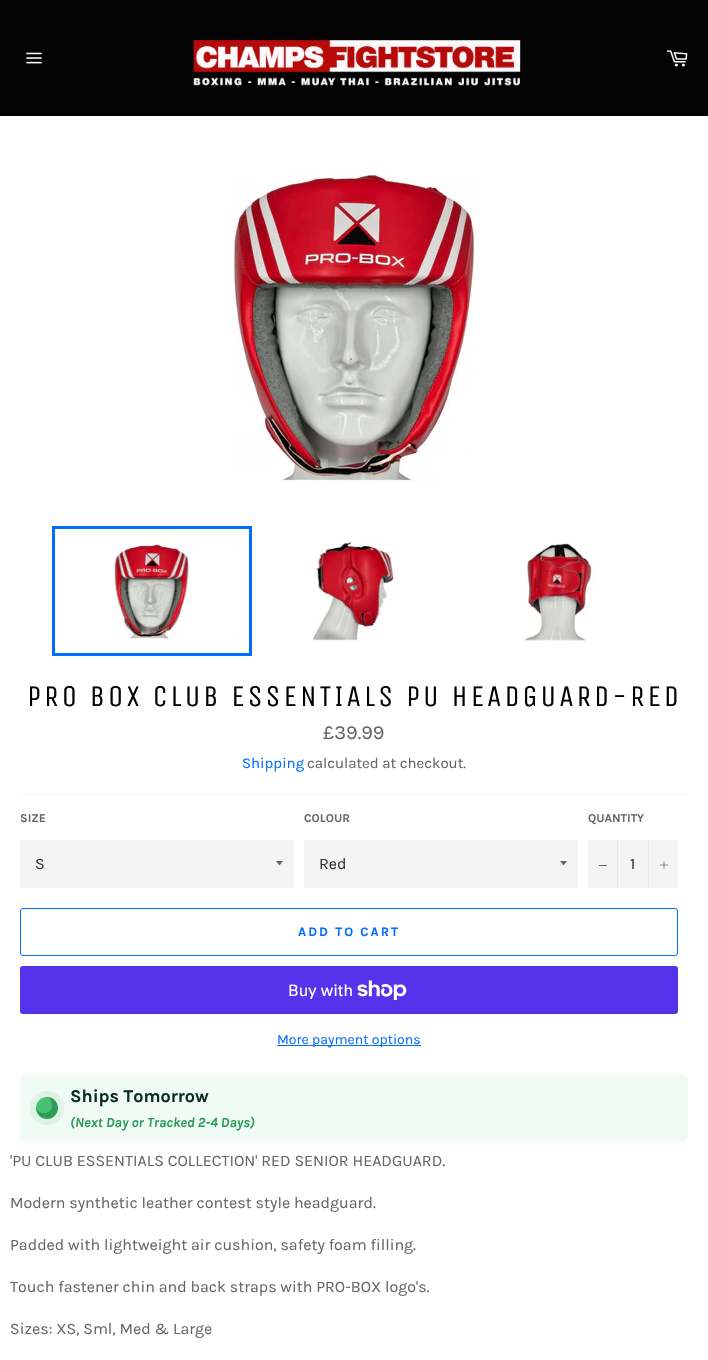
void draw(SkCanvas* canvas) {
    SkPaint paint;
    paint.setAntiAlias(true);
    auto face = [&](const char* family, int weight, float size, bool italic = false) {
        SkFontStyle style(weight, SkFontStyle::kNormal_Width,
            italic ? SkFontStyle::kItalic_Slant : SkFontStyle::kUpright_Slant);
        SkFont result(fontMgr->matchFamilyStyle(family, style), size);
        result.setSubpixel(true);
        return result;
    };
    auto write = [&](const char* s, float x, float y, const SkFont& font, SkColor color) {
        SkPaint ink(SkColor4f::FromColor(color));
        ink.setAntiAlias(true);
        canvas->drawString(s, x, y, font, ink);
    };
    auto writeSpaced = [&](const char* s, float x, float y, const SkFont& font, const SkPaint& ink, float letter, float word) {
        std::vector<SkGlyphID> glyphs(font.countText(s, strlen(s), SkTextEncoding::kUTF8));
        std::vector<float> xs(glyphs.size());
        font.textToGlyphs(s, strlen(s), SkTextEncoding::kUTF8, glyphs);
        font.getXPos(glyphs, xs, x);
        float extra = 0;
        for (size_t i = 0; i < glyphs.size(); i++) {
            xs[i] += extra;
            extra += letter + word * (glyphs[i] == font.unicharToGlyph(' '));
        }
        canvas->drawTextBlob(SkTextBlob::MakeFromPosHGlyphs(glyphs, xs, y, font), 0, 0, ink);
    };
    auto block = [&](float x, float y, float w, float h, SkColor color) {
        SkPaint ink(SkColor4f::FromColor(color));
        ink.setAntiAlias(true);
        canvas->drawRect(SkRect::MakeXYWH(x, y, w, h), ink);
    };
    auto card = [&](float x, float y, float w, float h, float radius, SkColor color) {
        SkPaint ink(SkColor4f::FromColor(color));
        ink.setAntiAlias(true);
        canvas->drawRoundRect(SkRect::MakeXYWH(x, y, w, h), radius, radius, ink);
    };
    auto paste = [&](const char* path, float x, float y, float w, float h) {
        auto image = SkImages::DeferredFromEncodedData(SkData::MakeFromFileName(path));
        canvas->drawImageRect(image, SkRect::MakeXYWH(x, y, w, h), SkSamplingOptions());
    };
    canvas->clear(SkColorSetRGB(3, 3, 3));
    paste("pic1.png", 26, 52, 16, 12);
    paste("pic2.png", 193, 40, 328, 46);
    paste("pic3.png", 666, 50, 22, 17);
    block(0, 116, 708, 1244, SK_ColorWHITE);
    paste("pic4.png", 234, 172, 241, 310);
    paste("pic5.png", 114, 543, 75, 96);
    paint.setStyle(SkPaint::kStroke_Style);
    paint.setStrokeWidth(3);
    paint.setColor(SkColorSetRGB(0, 110, 255));
    canvas->drawRect(SkRect::MakeXYWH(53.5f, 527.5f, 197, 127), paint);
    paste("pic6.png", 313, 542, 86, 100);
    paste("pic7.png", 524, 543, 70, 99);
    auto kFont1 = face("Unica One", 400, 30);
    paint.setStyle(SkPaint::kFill_Style);
    paint.setColor(SkColorSetRGB(3, 3, 3));
    writeSpaced("PRO BOX CLUB ESSENTIALS PU HEADGUARD-RED", 27, 706, kFont1, paint, 3, 0);
    auto kFont2 = face("Karla", 400, 20);
    write("£39.99", 323, 739, kFont2, SkColorSetRGB(102, 102, 102));
    auto kFont3 = face("Karla", 400, 15);
    write("Shipping", 242, 768, kFont3, SkColorSetRGB(0, 110, 255));
    write("calculated at checkout.", 307, 768, kFont3, SkColorSetRGB(102, 102, 102));
    block(20, 794, 668, 1, SkColorSetRGB(247, 247, 247));
    auto kFont4 = face("Karla", 700, 12);
    write("SIZE", 20, 822, kFont4, SkColorSetRGB(102, 102, 102));
    block(20, 840, 274, 48, SkColorSetRGB(244, 244, 244));
    paint.setColor(SkColorSetRGB(102, 102, 102));
    canvas->drawPath(SkPathBuilder().moveTo(276, 861).cubicTo(280.5f, 866.5f, 278.5f, 866.5f, 283, 861).close().detach(), paint);
    auto kFont5 = face("Karla", 400, 16);
    write("S", 35, 869, kFont5, SkColorSetRGB(51, 51, 51));
    write("COLOUR", 304, 822, kFont4, SkColorSetRGB(102, 102, 102));
    block(304, 840, 274, 48, SkColorSetRGB(244, 244, 244));
    canvas->drawPath(SkPathBuilder().moveTo(560, 861).cubicTo(564.5f, 866.5f, 562.5f, 866.5f, 567, 861).close().detach(), paint);
    write("Red", 319, 869, kFont5, SkColorSetRGB(51, 51, 51));
    write("QUANTITY", 588, 822, kFont4, SkColorSetRGB(102, 102, 102));
    block(588, 840, 90, 48, SkColorSetRGB(244, 244, 244));
    block(617, 840, 1, 48, SkColorSetRGB(231, 231, 231));
    block(599, 865, 8, 1, SkColorSetRGB(102, 102, 102));
    write("1", 630, 869, kFont5, SkColorSetRGB(51, 51, 51));
    block(648, 840, 1, 48, SkColorSetRGB(231, 231, 231));
    paste("pic8.png", 660, 861, 8, 8);
    paint.setStyle(SkPaint::kStroke_Style);
    paint.setStrokeWidth(1);
    paint.setColor(SkColorSetRGB(0, 110, 255));
    canvas->drawRoundRect(SkRect::MakeXYWH(20.5f, 908.5f, 657, 47), 2.5f, 2.5f, paint);
    auto kFont6 = face("Karla", 700, 13);
    paint.setStyle(SkPaint::kFill_Style);
    writeSpaced("ADD TO CART", 298, 936, kFont6, paint, 2, 0);
    card(20, 966, 658, 48, 3, SkColorSetRGB(84, 51, 235));
    auto kFont7 = face("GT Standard", 400, 16);
    write("Buy with", 288, 996, kFont7, SK_ColorWHITE);
    paste("pic9.png", 357, 980, 50, 20);
    block(277, 1045, 144, 1, SkColorSetRGB(0, 110, 255));
    auto kFont8 = face("Karla", 400, 14);
    write("More payment options", 277, 1044, kFont8, SkColorSetRGB(0, 110, 255));
    card(20, 1074, 668, 68, 6, SkColorSetRGB(241, 251, 246));
    paint.setStyle(SkPaint::kStroke_Style);
    paint.setStrokeWidth(6);
    paint.setColor(SkColorSetRGB(221, 244, 230));
    canvas->drawCircle(47, 1108, 14, paint);
    paint.setStyle(SkPaint::kFill_Style);
    {
        const SkColor colors[] = {SkColorSetRGB(71, 194, 116), SkColorSetRGB(42, 157, 86)};
        const float stops[] = {0.4f, 0.41f};
        paint.setShader(SkGradientShader::MakeRadial({44, 1105}, 20, colors, stops, 2, SkTileMode::kClamp));
        paint.setAlpha(255);
    }
    canvas->drawCircle(47, 1108, 11, paint);
    auto kFont9 = face("Karla", 700, 18);
    write("Ships Tomorrow", 70, 1102, kFont9, SkColorSetRGB(11, 43, 34));
    auto kFont10 = face("Karla", 700, 14, true);
    write("(Next Day or Tracked 2-4 Days)", 70, 1127, kFont10, SkColorSetRGB(42, 157, 86));
    write("'PU CLUB ESSENTIALS COLLECTION' RED SENIOR HEADGUARD.", 10, 1166, kFont5, SkColorSetRGB(102, 102, 102));
    write("Modern synthetic leather contest style headguard.", 10, 1208, kFont5, SkColorSetRGB(102, 102, 102));
    write("Padded with lightweight air cushion, safety foam filling.", 10, 1250, kFont5, SkColorSetRGB(102, 102, 102));
    write("Touch fastener chin and back straps with PRO-BOX logo's.", 10, 1292, kFont5, SkColorSetRGB(102, 102, 102));
    write("Sizes: XS, Sml, Med & Large", 10, 1334, kFont5, SkColorSetRGB(102, 102, 102));
}
